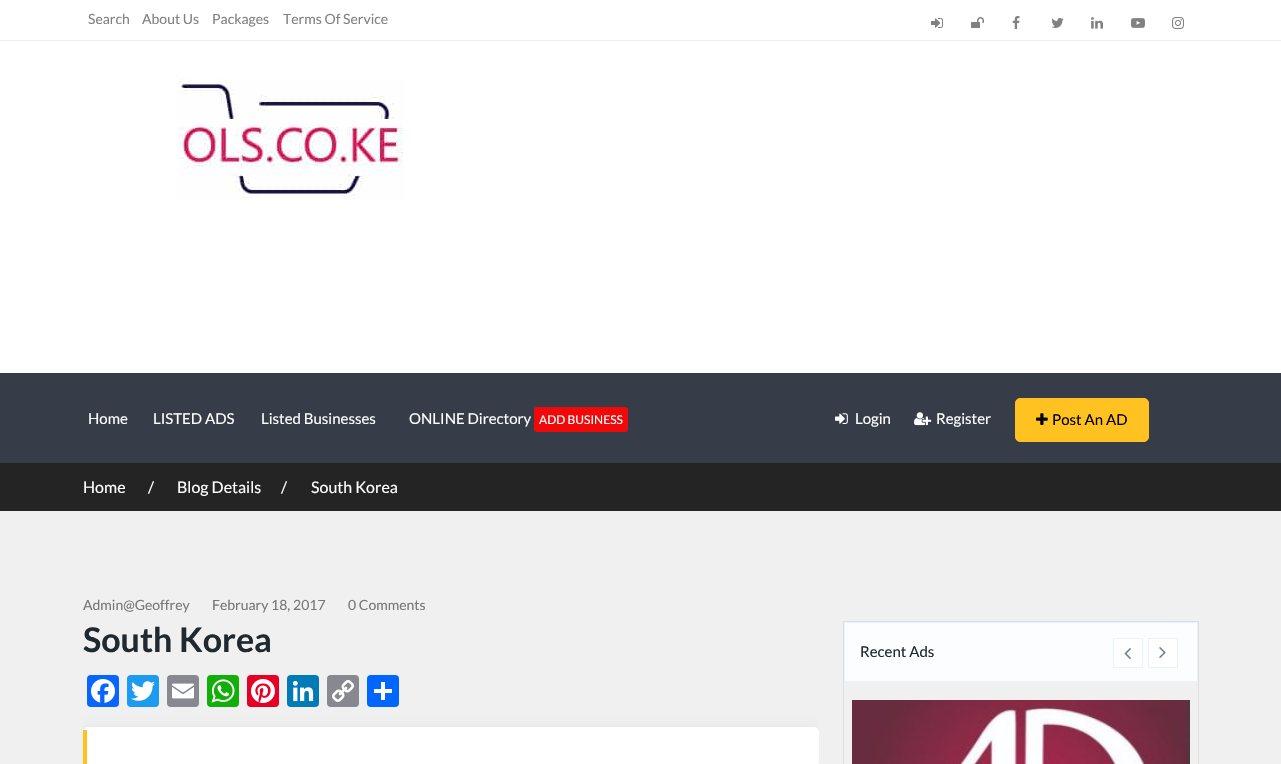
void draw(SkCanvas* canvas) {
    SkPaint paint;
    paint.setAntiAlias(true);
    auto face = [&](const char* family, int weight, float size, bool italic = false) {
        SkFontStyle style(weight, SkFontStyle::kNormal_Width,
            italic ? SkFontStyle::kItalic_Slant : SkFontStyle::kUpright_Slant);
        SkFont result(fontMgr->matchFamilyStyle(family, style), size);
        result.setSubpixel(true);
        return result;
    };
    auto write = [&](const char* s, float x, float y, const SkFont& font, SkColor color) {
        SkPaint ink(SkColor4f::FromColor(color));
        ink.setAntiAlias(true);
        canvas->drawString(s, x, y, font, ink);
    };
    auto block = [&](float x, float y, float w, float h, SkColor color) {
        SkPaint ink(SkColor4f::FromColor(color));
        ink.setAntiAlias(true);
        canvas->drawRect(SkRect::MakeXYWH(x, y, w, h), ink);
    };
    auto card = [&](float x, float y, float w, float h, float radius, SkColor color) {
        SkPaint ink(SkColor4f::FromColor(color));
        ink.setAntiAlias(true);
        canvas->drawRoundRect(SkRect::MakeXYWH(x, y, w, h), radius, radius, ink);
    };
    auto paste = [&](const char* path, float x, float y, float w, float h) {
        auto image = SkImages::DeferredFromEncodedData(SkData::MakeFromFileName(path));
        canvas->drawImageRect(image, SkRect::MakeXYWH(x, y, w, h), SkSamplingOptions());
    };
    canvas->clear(SK_ColorWHITE);
    block(0, 40, 1281, 1, SkColorSetRGB(238, 238, 238));
    auto kFont1 = face("Lato", 400, 14);
    write("Search", 88, 24, kFont1, SkColorSetRGB(129, 129, 129));
    write("About Us", 142, 24, kFont1, SkColorSetRGB(129, 129, 129));
    write("Packages", 212, 24, kFont1, SkColorSetRGB(129, 129, 129));
    write("Terms Of Service", 283, 24, kFont1, SkColorSetRGB(129, 129, 129));
    paste("pic1.png", 931, 18, 12, 10);
    paste("pic2.png", 971, 17, 13, 11);
    paste("pic3.png", 1012, 16, 8, 13);
    paste("pic4.png", 1051, 18, 13, 10);
    paste("pic5.png", 1091, 17, 12, 12);
    paste("pic6.png", 1131, 18, 14, 10);
    paste("pic7.png", 1172, 17, 12, 12);
    paste("pic8.png", 178, 79, 226, 120);
    block(0, 373, 1281, 90, SkColorSetRGB(54, 60, 72));
    auto kFont2 = face("Lato", 400, 15);
    write("Home", 88, 424, kFont2, SK_ColorWHITE);
    write("LISTED ADS", 153, 424, kFont2, SK_ColorWHITE);
    write("Listed Businesses", 261, 424, kFont2, SK_ColorWHITE);
    write("ONLINE Directory", 409, 424, kFont2, SK_ColorWHITE);
    card(534, 407, 94, 25, 3, SkColorSetRGB(241, 9, 9));
    auto kFont3 = face("Lato", 400, 12);
    write("ADD BUSINESS", 539, 424, kFont3, SK_ColorWHITE);
    paste("pic9.png", 835, 413, 13, 11);
    write("Login", 855, 424, kFont2, SK_ColorWHITE);
    paste("pic10.png", 914, 412, 18, 14);
    write("Register", 936, 424, kFont2, SK_ColorWHITE);
    paint.setColor(SkColorSetRGB(255, 194, 32));
    canvas->drawRoundRect(SkRect::MakeXYWH(1015.5f, 398.5f, 133, 43), 4.5f, 4.5f, paint);
    paint.setStyle(SkPaint::kStroke_Style);
    paint.setStrokeWidth(1);
    canvas->drawRoundRect(SkRect::MakeXYWH(1015.5f, 398.5f, 133, 43), 4.5f, 4.5f, paint);
    paste("pic11.png", 1036, 413, 12, 12);
    write("Post An AD", 1052, 425, kFont2, SK_ColorBLACK);
    block(0, 463, 1281, 48, SkColorSetRGB(36, 36, 36));
    auto kFont4 = face("Lato", 400, 16);
    write("Home", 83, 493, kFont4, SK_ColorWHITE);
    write("/", 148, 493, kFont4, SK_ColorWHITE);
    write("Blog Details", 177, 493, kFont4, SK_ColorWHITE);
    write("/", 281, 493, kFont4, SK_ColorWHITE);
    write("South Korea", 311, 493, kFont4, SK_ColorWHITE);
    block(0, 511, 1281, 253, SkColorSetRGB(240, 240, 240));
    write("Admin@Geoffrey", 83, 610, kFont1, SkColorSetRGB(119, 119, 119));
    write("February 18, 2017", 212, 610, kFont1, SkColorSetRGB(119, 119, 119));
    write("0 Comments", 348, 610, kFont1, SkColorSetRGB(119, 119, 119));
    auto kFont5 = face("Lato", 700, 34);
    write("South Korea", 83, 652, kFont5, SkColorSetRGB(32, 41, 47));
    card(87, 675, 32, 32, 4, SkColorSetRGB(8, 102, 255));
    paste("pic12.png", 91, 679, 24, 24);
    card(127, 675, 32, 32, 4, SkColorSetRGB(29, 155, 240));
    paste("pic13.png", 131, 681, 24, 20);
    card(167, 675, 32, 32, 4, SkColorSetRGB(136, 137, 144));
    paste("pic14.png", 172, 683, 22, 16);
    card(207, 675, 32, 32, 4, SkColorSetRGB(18, 175, 10));
    paste("pic15.png", 211, 679, 24, 24);
    card(247, 675, 32, 32, 4, SkColorSetRGB(230, 0, 35));
    paste("pic16.png", 251, 679, 24, 24);
    card(287, 675, 32, 32, 4, SkColorSetRGB(0, 123, 181));
    paste("pic17.png", 292, 680, 22, 22);
    card(327, 675, 32, 32, 4, SkColorSetRGB(136, 137, 144));
    paste("pic18.png", 332, 680, 22, 22);
    card(367, 675, 32, 32, 4, SkColorSetRGB(1, 102, 255));
    block(381, 682, 4, 18, SK_ColorWHITE);
    block(374, 689, 18, 4, SK_ColorWHITE);
    paint.setColor(SkColorSetRGB(222, 222, 222));
    canvas->drawRect(SkRect::MakeXYWH(843.5f, 621.5f, 355, 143), paint);
    canvas->save();
    canvas->clipRect(SkRect::MakeXYWH(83, 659, 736, 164));
    paint.setStyle(SkPaint::kFill_Style);
    paint.setColor(SkColorSetARGB(38, 0, 0, 0));
    paint.setMaskFilter(SkMaskFilter::MakeBlur(kNormal_SkBlurStyle, 8));
    canvas->drawRoundRect(SkRect::MakeXYWH(83, 735, 736, 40), 5, 5, paint);
    paint.setMaskFilter(nullptr);
    canvas->restore();
    card(83, 727, 736, 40, 5, SK_ColorWHITE);
    block(83, 730, 4, 34, SkColorSetRGB(255, 194, 32));
    paint.setColor(SkColorSetRGB(251, 253, 255));
    canvas->drawRect(SkRect::MakeXYWH(844.5f, 622.5f, 353, 59), paint);
    paint.setStyle(SkPaint::kStroke_Style);
    paint.setColor(SkColorSetRGB(233, 241, 252));
    canvas->drawRect(SkRect::MakeXYWH(844.5f, 622.5f, 353, 59), paint);
    paint.setStyle(SkPaint::kFill_Style);
    paint.setColor(SK_ColorWHITE);
    canvas->drawRect(SkRect::MakeXYWH(1113.5f, 638.5f, 29, 29), paint);
    paint.setStyle(SkPaint::kStroke_Style);
    paint.setColor(SkColorSetRGB(233, 241, 252));
    canvas->drawRect(SkRect::MakeXYWH(1113.5f, 638.5f, 29, 29), paint);
    paste("pic19.png", 1124, 648, 7, 12);
    paint.setStyle(SkPaint::kFill_Style);
    paint.setColor(SK_ColorWHITE);
    canvas->drawRect(SkRect::MakeXYWH(1148.5f, 638.5f, 29, 29), paint);
    paint.setStyle(SkPaint::kStroke_Style);
    paint.setColor(SkColorSetRGB(233, 241, 252));
    canvas->drawRect(SkRect::MakeXYWH(1148.5f, 638.5f, 29, 29), paint);
    paste("pic20.png", 1159, 647, 7, 12);
    paste("pic21.png", 852, 700, 338, 64);
    write("Recent Ads", 860, 657, kFont2, SkColorSetRGB(32, 41, 47));
}
